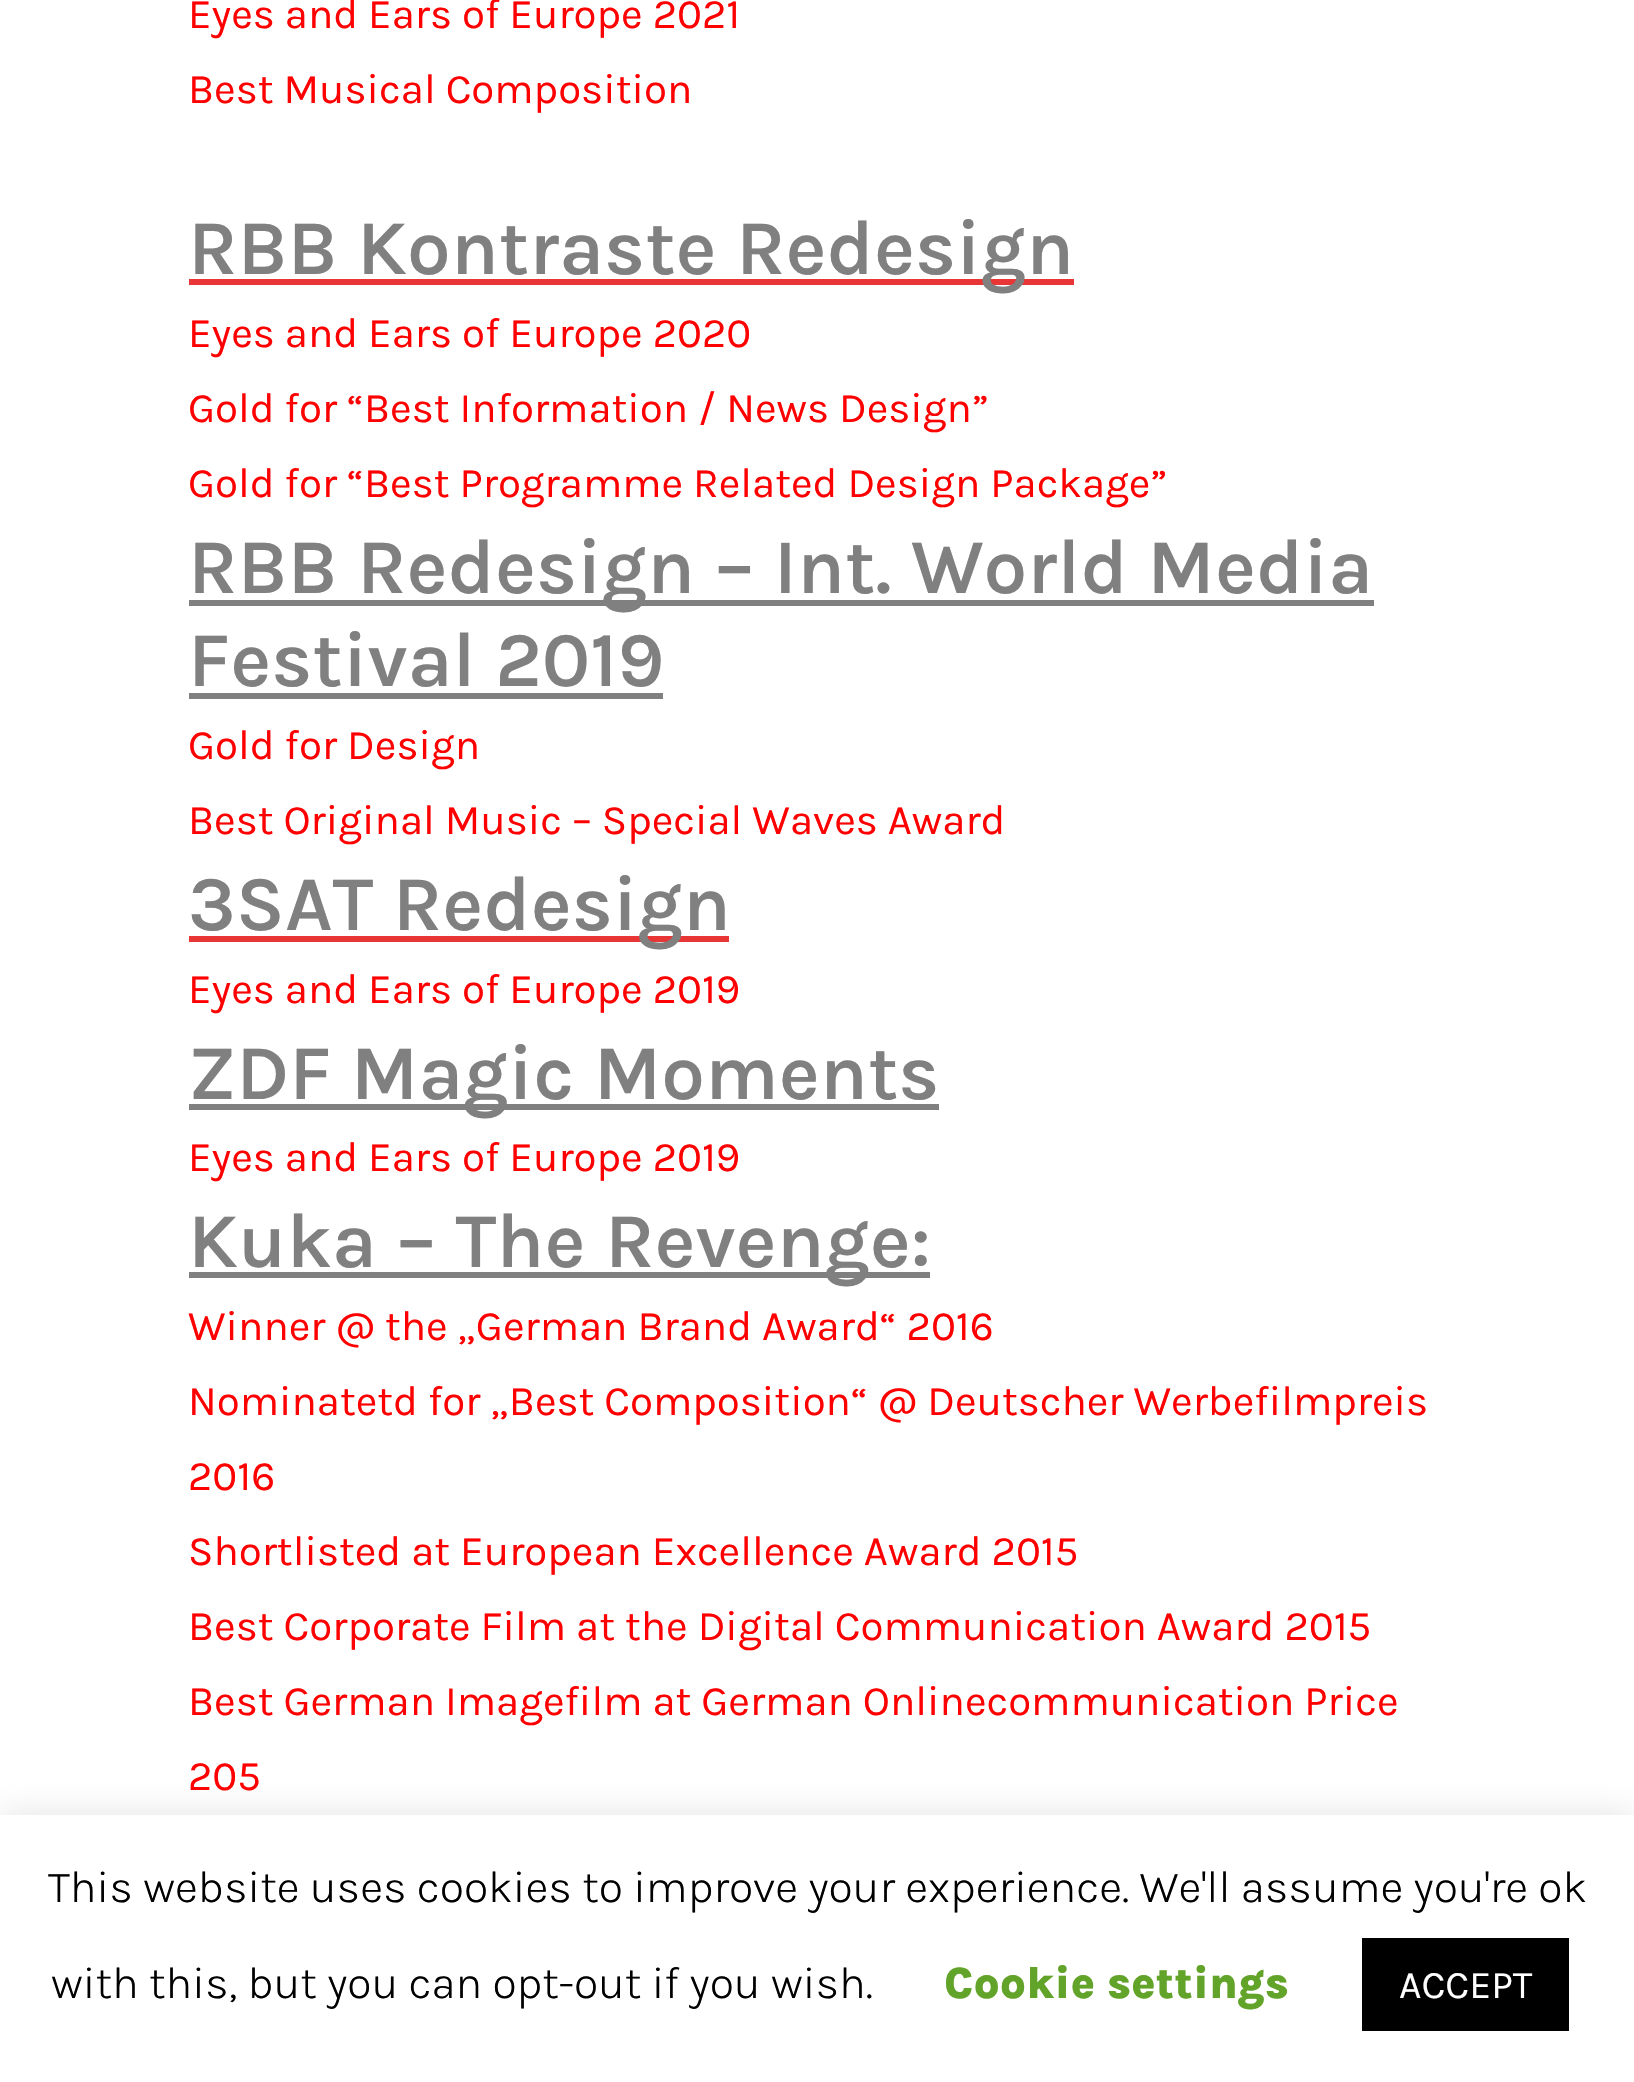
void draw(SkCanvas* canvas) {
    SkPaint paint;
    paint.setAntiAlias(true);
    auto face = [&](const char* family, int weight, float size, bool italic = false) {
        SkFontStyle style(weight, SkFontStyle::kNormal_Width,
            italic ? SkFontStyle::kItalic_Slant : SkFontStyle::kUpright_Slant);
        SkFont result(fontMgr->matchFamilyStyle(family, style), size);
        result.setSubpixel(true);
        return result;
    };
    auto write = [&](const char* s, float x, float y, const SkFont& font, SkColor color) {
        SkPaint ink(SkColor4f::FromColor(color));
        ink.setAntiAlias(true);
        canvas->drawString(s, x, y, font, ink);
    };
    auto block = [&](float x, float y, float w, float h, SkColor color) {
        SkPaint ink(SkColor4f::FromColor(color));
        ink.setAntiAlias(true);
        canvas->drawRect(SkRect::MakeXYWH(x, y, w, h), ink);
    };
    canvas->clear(SK_ColorWHITE);
    auto kFont1 = face("Karla", 400, 42);
    write("Eyes and Ears of Europe 2021", 188, 28, kFont1, SkColorSetRGB(255, 0, 0));
    write("Best Musical Composition", 188, 103, kFont1, SkColorSetRGB(255, 0, 0));
    block(189, 279, 885, 6, SkColorSetRGB(232, 53, 53));
    auto kFont2 = face("Karla", 600, 78);
    write("RBB Kontraste Redesign", 188, 274, kFont2, SkColorSetRGB(128, 128, 128));
    write("Eyes and Ears of Europe 2020", 188, 347, kFont1, SkColorSetRGB(255, 0, 0));
    write("Gold for “Best Information / News Design”", 188, 422, kFont1, SkColorSetRGB(255, 0, 0));
    write("Gold for “Best Programme Related Design Package”", 188, 497, kFont1, SkColorSetRGB(255, 0, 0));
    block(189, 600, 1185, 6, SkColorSetRGB(128, 128, 128));
    write("RBB Redesign – Int. World Media", 188, 593, kFont2, SkColorSetRGB(128, 128, 128));
    write("Festival 2019", 188, 686, kFont2, SkColorSetRGB(128, 128, 128));
    block(189, 693, 474, 6, SkColorSetRGB(128, 128, 128));
    write("Gold for Design", 188, 759, kFont1, SkColorSetRGB(255, 0, 0));
    write("Best Original Music – Special Waves Award", 188, 834, kFont1, SkColorSetRGB(255, 0, 0));
    block(189, 936, 540, 6, SkColorSetRGB(232, 53, 53));
    write("3SAT Redesign", 188, 930, kFont2, SkColorSetRGB(128, 128, 128));
    write("Eyes and Ears of Europe 2019", 188, 1003, kFont1, SkColorSetRGB(255, 0, 0));
    block(189, 1104, 750, 6, SkColorSetRGB(128, 128, 128));
    write("ZDF Magic Moments", 188, 1099, kFont2, SkColorSetRGB(128, 128, 128));
    write("Eyes and Ears of Europe 2019", 188, 1171, kFont1, SkColorSetRGB(255, 0, 0));
    block(189, 1272, 741, 6, SkColorSetRGB(128, 128, 128));
    write("Kuka – The Revenge:", 188, 1267, kFont2, SkColorSetRGB(128, 128, 128));
    write("Winner @ the „German Brand Award“ 2016", 188, 1340, kFont1, SkColorSetRGB(255, 0, 0));
    write("Nominatetd for „Best Composition“ @ Deutscher Werbefilmpreis", 188, 1415, kFont1, SkColorSetRGB(255, 0, 0));
    write("2016", 188, 1490, kFont1, SkColorSetRGB(255, 0, 0));
    write("Shortlisted at European Excellence Award 2015", 188, 1565, kFont1, SkColorSetRGB(255, 0, 0));
    write("Best Corporate Film at the Digital Communication Award 2015", 188, 1640, kFont1, SkColorSetRGB(255, 0, 0));
    write("Best German Imagefilm at German Onlinecommunication Price", 188, 1715, kFont1, SkColorSetRGB(255, 0, 0));
    write("205", 188, 1790, kFont1, SkColorSetRGB(255, 0, 0));
    paint.setColor(SkColorSetARGB(77, 172, 171, 171));
    paint.setMaskFilter(SkMaskFilter::MakeBlur(kNormal_SkBlurStyle, 15));
    canvas->drawRect(SkRect::MakeXYWH(0, 1812, 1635, 267), paint);
    paint.setMaskFilter(nullptr);
    block(0, 1815, 1634, 267, SK_ColorWHITE);
    auto kFont3 = face("Karla", 300, 45);
    write("This website uses cookies to improve your experience. We'll assume you're ok", 48, 1902, kFont3, SK_ColorBLACK);
    write("with this, but you can opt-out if you wish.", 51, 1998, kFont3, SK_ColorBLACK);
    auto kFont4 = face("Karla", 800, 45);
    write("Cookie settings", 944, 1998, kFont4, SkColorSetRGB(98, 163, 41));
    block(1362, 1938, 207, 93, SK_ColorBLACK);
    auto kFont5 = face("Karla", 400, 39);
    write("ACCEPT", 1399, 1998, kFont5, SK_ColorWHITE);
}
